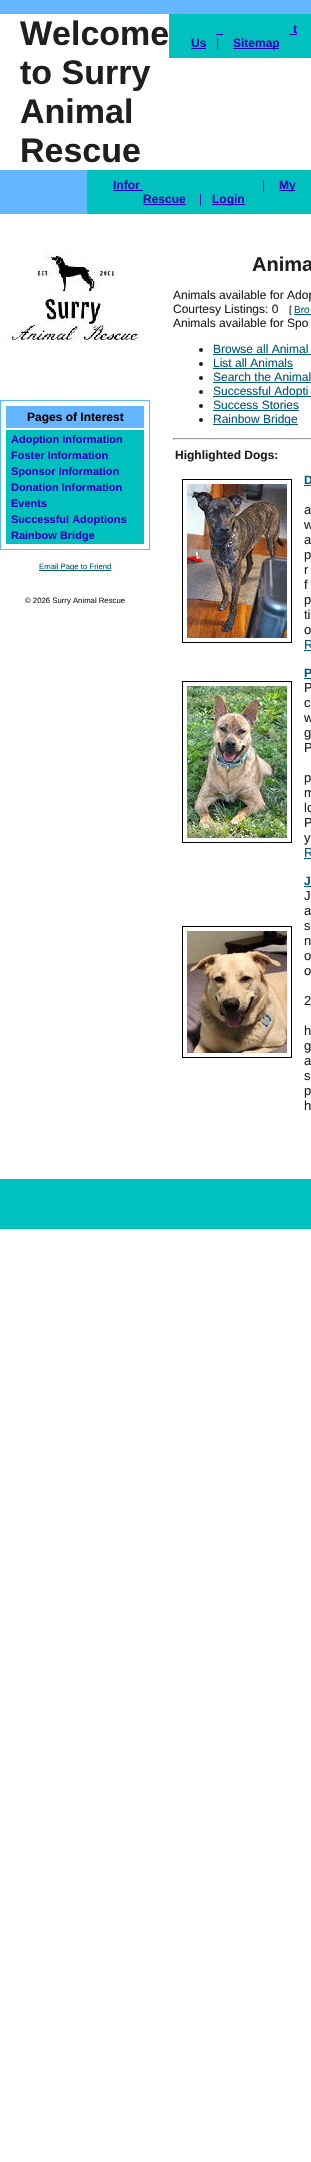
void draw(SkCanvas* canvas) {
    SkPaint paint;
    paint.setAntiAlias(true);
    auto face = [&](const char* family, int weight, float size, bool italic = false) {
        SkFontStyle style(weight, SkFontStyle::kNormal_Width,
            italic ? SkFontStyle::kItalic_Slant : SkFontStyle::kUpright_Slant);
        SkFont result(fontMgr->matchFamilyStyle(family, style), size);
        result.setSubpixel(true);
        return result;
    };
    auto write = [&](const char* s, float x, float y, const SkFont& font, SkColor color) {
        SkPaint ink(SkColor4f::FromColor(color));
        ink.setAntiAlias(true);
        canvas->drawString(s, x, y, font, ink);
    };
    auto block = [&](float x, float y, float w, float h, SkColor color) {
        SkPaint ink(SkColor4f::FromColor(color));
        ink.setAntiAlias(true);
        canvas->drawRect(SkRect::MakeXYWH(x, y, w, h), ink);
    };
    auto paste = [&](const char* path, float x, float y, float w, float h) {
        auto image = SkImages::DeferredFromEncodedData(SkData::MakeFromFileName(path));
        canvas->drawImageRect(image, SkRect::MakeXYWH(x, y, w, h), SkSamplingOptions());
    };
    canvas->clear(SK_ColorWHITE);
    block(0, 0, 311, 14, SkColorSetRGB(100, 182, 255));
    auto kFont1 = face("Liberation Sans", 700, 34);
    write("Welcome", 20, 45, kFont1, SkColorSetRGB(31, 31, 31));
    write("to Surry", 20, 84, kFont1, SkColorSetRGB(31, 31, 31));
    write("Animal", 20, 123, kFont1, SkColorSetRGB(31, 31, 31));
    write("Rescue", 20, 162, kFont1, SkColorSetRGB(31, 31, 31));
    block(169, 14, 142, 44, SkColorSetRGB(0, 193, 189));
    auto kFont2 = face("Liberation Sans", 700, 12);
    write("t", 293, 33, kFont2, SkColorSetRGB(49, 0, 187));
    block(289, 34, 8, 1, SkColorSetRGB(49, 0, 187));
    block(216, 34, 10, 1, SkColorSetRGB(49, 0, 187));
    write("Us", 191, 47, kFont2, SkColorSetRGB(49, 0, 187));
    block(191, 48, 15, 1, SkColorSetRGB(49, 0, 187));
    auto kFont3 = face("Liberation Sans", 400, 12);
    write("|", 216, 47, kFont3, SkColorSetRGB(49, 0, 187));
    block(233, 48, 46, 1, SkColorSetRGB(49, 0, 187));
    write("Sitemap", 233, 47, kFont2, SkColorSetRGB(49, 0, 187));
    block(223, 34, 3, 1, SkColorSetRGB(0, 193, 189));
    block(0, 170, 87, 44, SkColorSetRGB(100, 182, 255));
    block(87, 170, 224, 44, SkColorSetRGB(0, 193, 189));
    write("Infor", 113, 189, kFont2, SkColorSetRGB(49, 0, 187));
    block(113, 190, 30, 1, SkColorSetRGB(49, 0, 187));
    write("|", 262, 189, kFont3, SkColorSetRGB(49, 0, 187));
    block(279, 190, 16, 1, SkColorSetRGB(49, 0, 187));
    write("My", 279, 189, kFont2, SkColorSetRGB(49, 0, 187));
    write("Rescue", 143, 203, kFont2, SkColorSetRGB(49, 0, 187));
    block(143, 204, 43, 1, SkColorSetRGB(49, 0, 187));
    write("|", 199, 203, kFont3, SkColorSetRGB(49, 0, 187));
    block(212, 204, 33, 1, SkColorSetRGB(49, 0, 187));
    write("Login", 212, 203, kFont2, SkColorSetRGB(49, 0, 187));
    paste("pic1.png", 5, 252, 136, 88);
    paint.setStyle(SkPaint::kStroke_Style);
    paint.setStrokeWidth(1);
    paint.setColor(SkColorSetRGB(100, 182, 255));
    canvas->drawRect(SkRect::MakeXYWH(0.5f, 400.5f, 149, 149), paint);
    block(6, 406, 138, 22, SkColorSetRGB(100, 182, 255));
    write("Pages of Interest", 27, 421, kFont2, SK_ColorBLACK);
    block(6, 430, 138, 114, SkColorSetRGB(0, 193, 189));
    auto kFont4 = face("Liberation Sans", 700, 11);
    write("Adoption Information", 11, 443, kFont4, SkColorSetRGB(49, 0, 187));
    write("Foster Information", 11, 459, kFont4, SkColorSetRGB(49, 0, 187));
    write("Sponsor Information", 11, 475, kFont4, SkColorSetRGB(49, 0, 187));
    write("Donation Information", 11, 491, kFont4, SkColorSetRGB(49, 0, 187));
    write("Events", 11, 507, kFont4, SkColorSetRGB(49, 0, 187));
    write("Successful Adoptions", 11, 523, kFont4, SkColorSetRGB(49, 0, 187));
    write("Rainbow Bridge", 11, 539, kFont4, SkColorSetRGB(49, 0, 187));
    block(39, 570, 72, 1, SkColorSetRGB(0, 90, 121));
    auto kFont5 = face("Liberation Sans", 400, 7.75f);
    write("Email Page to Friend", 39, 569, kFont5, SkColorSetRGB(0, 90, 121));
    write("© 2026 Surry Animal Rescue", 25, 603, kFont5, SkColorSetRGB(31, 31, 31));
    auto kFont6 = face("Liberation Sans", 700, 20);
    write("Anima", 252, 271, kFont6, SkColorSetRGB(31, 31, 31));
    write("Animals available for Adop", 173, 299, kFont3, SkColorSetRGB(31, 31, 31));
    write("Courtesy Listings: 0", 173, 313, kFont3, SkColorSetRGB(31, 31, 31));
    auto kFont7 = face("Liberation Sans", 400, 10);
    write("[", 289, 313, kFont7, SkColorSetRGB(31, 31, 31));
    write("Bro", 294, 313, kFont7, SkColorSetRGB(0, 90, 121));
    block(294, 314, 17, 1, SkColorSetRGB(0, 90, 121));
    write("Animals available for Spo", 173, 327, kFont3, SkColorSetRGB(31, 31, 31));
    paint.setStyle(SkPaint::kFill_Style);
    paint.setColor(SkColorSetRGB(31, 31, 31));
    canvas->drawCircle(201, 350, 2, paint);
    write("Browse all Animal", 213, 353, kFont3, SkColorSetRGB(0, 90, 121));
    block(213, 354, 98, 1, SkColorSetRGB(0, 90, 121));
    canvas->drawCircle(201, 364, 2, paint);
    write("List all Animals", 213, 367, kFont3, SkColorSetRGB(0, 90, 121));
    block(213, 368, 80, 1, SkColorSetRGB(0, 90, 121));
    canvas->drawCircle(201, 378, 2, paint);
    write("Search the Animal", 213, 381, kFont3, SkColorSetRGB(0, 90, 121));
    block(213, 382, 98, 1, SkColorSetRGB(0, 90, 121));
    canvas->drawCircle(201, 392, 2, paint);
    block(213, 396, 98, 1, SkColorSetRGB(0, 90, 121));
    write("Successful Adopti", 213, 395, kFont3, SkColorSetRGB(0, 90, 121));
    canvas->drawCircle(201, 406, 2, paint);
    write("Success Stories", 213, 409, kFont3, SkColorSetRGB(0, 90, 121));
    block(213, 410, 86, 1, SkColorSetRGB(0, 90, 121));
    canvas->drawCircle(201, 420, 2, paint);
    block(213, 424, 85, 1, SkColorSetRGB(0, 90, 121));
    write("Rainbow Bridge", 213, 423, kFont3, SkColorSetRGB(0, 90, 121));
    block(173, 438, 138, 1, SkColorSetRGB(159, 159, 159));
    block(173, 439, 138, 1, SkColorSetRGB(238, 238, 238));
    block(173, 438, 1, 2, SkColorSetRGB(159, 159, 159));
    write("Highlighted Dogs:", 175, 459, kFont2, SkColorSetRGB(31, 31, 31));
    paint.setStyle(SkPaint::kStroke_Style);
    paint.setColor(SK_ColorBLACK);
    canvas->drawRect(SkRect::MakeXYWH(182.5f, 479.5f, 109, 163), paint);
    paste("pic2.png", 187, 484, 100, 154);
    write("D", 304, 484, kFont2, SkColorSetRGB(0, 90, 121));
    block(304, 485, 7, 1, SkColorSetRGB(0, 90, 121));
    auto kFont8 = face("Liberation Sans", 400, 13);
    write("a", 304, 514, kFont8, SkColorSetRGB(31, 31, 31));
    write("w", 304, 529, kFont8, SkColorSetRGB(31, 31, 31));
    write("a", 304, 544, kFont8, SkColorSetRGB(31, 31, 31));
    write("p", 304, 559, kFont8, SkColorSetRGB(31, 31, 31));
    write("r", 304, 574, kFont8, SkColorSetRGB(31, 31, 31));
    write("f", 304, 589, kFont8, SkColorSetRGB(31, 31, 31));
    write("p", 304, 604, kFont8, SkColorSetRGB(31, 31, 31));
    write("ti", 304, 619, kFont8, SkColorSetRGB(31, 31, 31));
    write("o", 304, 634, kFont8, SkColorSetRGB(31, 31, 31));
    write("R", 304, 649, kFont8, SkColorSetRGB(0, 90, 121));
    block(304, 650, 7, 1, SkColorSetRGB(0, 90, 121));
    canvas->drawRect(SkRect::MakeXYWH(182.5f, 681.5f, 109, 161), paint);
    paste("pic3.png", 187, 686, 100, 152);
    write("P", 304, 677, kFont2, SkColorSetRGB(0, 90, 121));
    block(304, 678, 7, 1, SkColorSetRGB(0, 90, 121));
    write("P", 304, 692, kFont8, SkColorSetRGB(31, 31, 31));
    write("c", 304, 707, kFont8, SkColorSetRGB(31, 31, 31));
    write("w", 304, 722, kFont8, SkColorSetRGB(31, 31, 31));
    write("g", 304, 737, kFont8, SkColorSetRGB(31, 31, 31));
    write("P", 304, 752, kFont8, SkColorSetRGB(31, 31, 31));
    write("p", 304, 782, kFont8, SkColorSetRGB(31, 31, 31));
    write("m", 304, 797, kFont8, SkColorSetRGB(31, 31, 31));
    write("lo", 304, 812, kFont8, SkColorSetRGB(31, 31, 31));
    write("P", 304, 827, kFont8, SkColorSetRGB(31, 31, 31));
    write("y", 304, 842, kFont8, SkColorSetRGB(31, 31, 31));
    write("R", 304, 857, kFont8, SkColorSetRGB(0, 90, 121));
    block(304, 858, 7, 1, SkColorSetRGB(0, 90, 121));
    canvas->drawRect(SkRect::MakeXYWH(182.5f, 926.5f, 109, 131), paint);
    paste("pic4.png", 187, 931, 100, 122);
    write("J", 304, 885, kFont2, SkColorSetRGB(0, 90, 121));
    block(304, 886, 7, 1, SkColorSetRGB(0, 90, 121));
    write("J", 304, 900, kFont8, SkColorSetRGB(31, 31, 31));
    write("a", 304, 915, kFont8, SkColorSetRGB(31, 31, 31));
    write("s", 304, 930, kFont8, SkColorSetRGB(31, 31, 31));
    write("n", 304, 945, kFont8, SkColorSetRGB(31, 31, 31));
    write("o", 304, 960, kFont8, SkColorSetRGB(31, 31, 31));
    write("o", 304, 975, kFont8, SkColorSetRGB(31, 31, 31));
    write("2", 304, 1005, kFont8, SkColorSetRGB(31, 31, 31));
    write("h", 304, 1035, kFont8, SkColorSetRGB(31, 31, 31));
    write("g", 304, 1050, kFont8, SkColorSetRGB(31, 31, 31));
    write("a", 304, 1065, kFont8, SkColorSetRGB(31, 31, 31));
    write("s", 304, 1080, kFont8, SkColorSetRGB(31, 31, 31));
    write("p", 304, 1095, kFont8, SkColorSetRGB(31, 31, 31));
    write("h", 304, 1110, kFont8, SkColorSetRGB(31, 31, 31));
    block(0, 1179, 311, 50, SkColorSetRGB(0, 193, 189));
}
